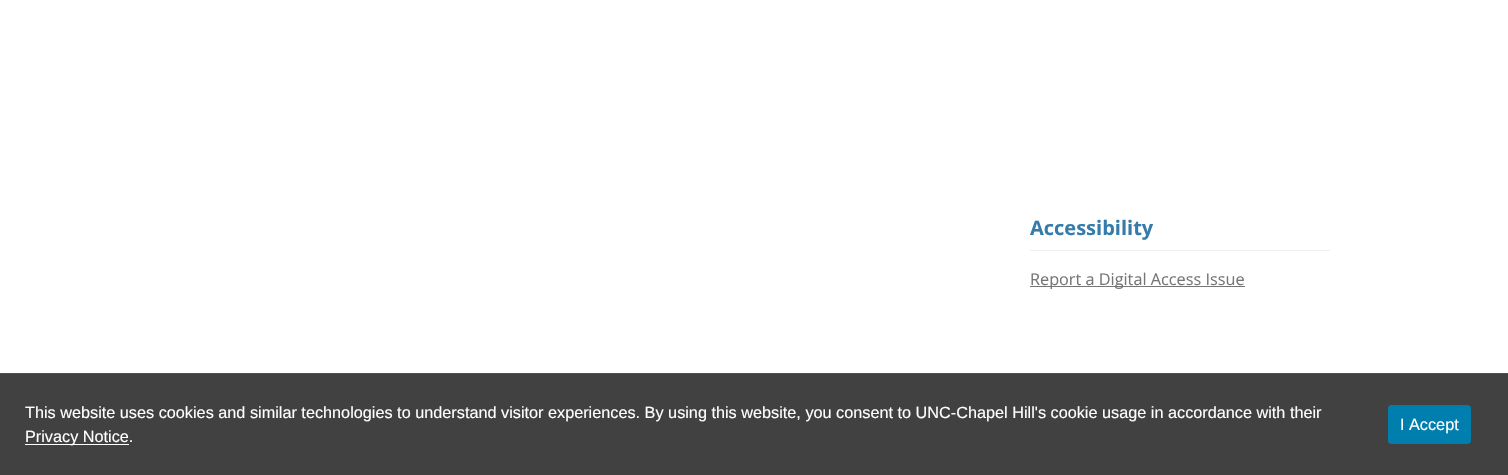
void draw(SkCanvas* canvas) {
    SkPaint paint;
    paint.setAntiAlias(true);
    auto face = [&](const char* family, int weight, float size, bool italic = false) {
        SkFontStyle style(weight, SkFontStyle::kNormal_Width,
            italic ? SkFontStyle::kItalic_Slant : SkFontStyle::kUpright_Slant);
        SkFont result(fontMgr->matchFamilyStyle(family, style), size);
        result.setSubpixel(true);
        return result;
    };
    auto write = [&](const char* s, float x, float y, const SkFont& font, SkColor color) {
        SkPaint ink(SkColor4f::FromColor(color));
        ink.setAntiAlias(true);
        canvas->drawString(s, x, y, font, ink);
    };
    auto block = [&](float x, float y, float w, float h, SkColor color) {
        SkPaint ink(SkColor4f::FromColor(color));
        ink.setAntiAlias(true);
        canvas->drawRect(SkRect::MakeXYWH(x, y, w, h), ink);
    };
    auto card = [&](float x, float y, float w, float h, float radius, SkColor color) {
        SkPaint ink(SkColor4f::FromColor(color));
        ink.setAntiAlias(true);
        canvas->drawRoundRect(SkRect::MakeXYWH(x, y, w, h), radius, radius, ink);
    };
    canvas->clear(SK_ColorWHITE);
    block(1030, 250, 300, 1, SkColorSetRGB(239, 239, 239));
    auto kFont1 = face("Open Sans", 700, 20);
    write("Accessibility", 1030, 235, kFont1, SkColorSetRGB(54, 124, 170));
    block(1030, 286, 215, 1, SkColorSetRGB(117, 117, 117));
    auto kFont2 = face("Open Sans", 400, 16.25f);
    write("Report a Digital Access Issue", 1030, 285, kFont2, SkColorSetRGB(117, 117, 117));
    block(0, 374, 1508, 101, SkColorSetRGB(65, 65, 65));
    block(0, 373, 1508, 1, SkColorSetRGB(81, 81, 81));
    auto kFont3 = face("Liberation Sans", 400, 16.25f);
    write("This website uses cookies and similar technologies to understand visitor experiences. By using this website, you consent to UNC-Chapel Hill's cookie usage in accordance with their", 25, 418, kFont3, SK_ColorWHITE);
    block(25, 444, 104, 1, SK_ColorWHITE);
    write("Privacy Notice.", 25, 442, kFont3, SK_ColorWHITE);
    card(1388, 405, 83, 39, 4, SkColorSetRGB(0, 127, 174));
    write("I Accept", 1400, 430, kFont3, SK_ColorWHITE);
}
